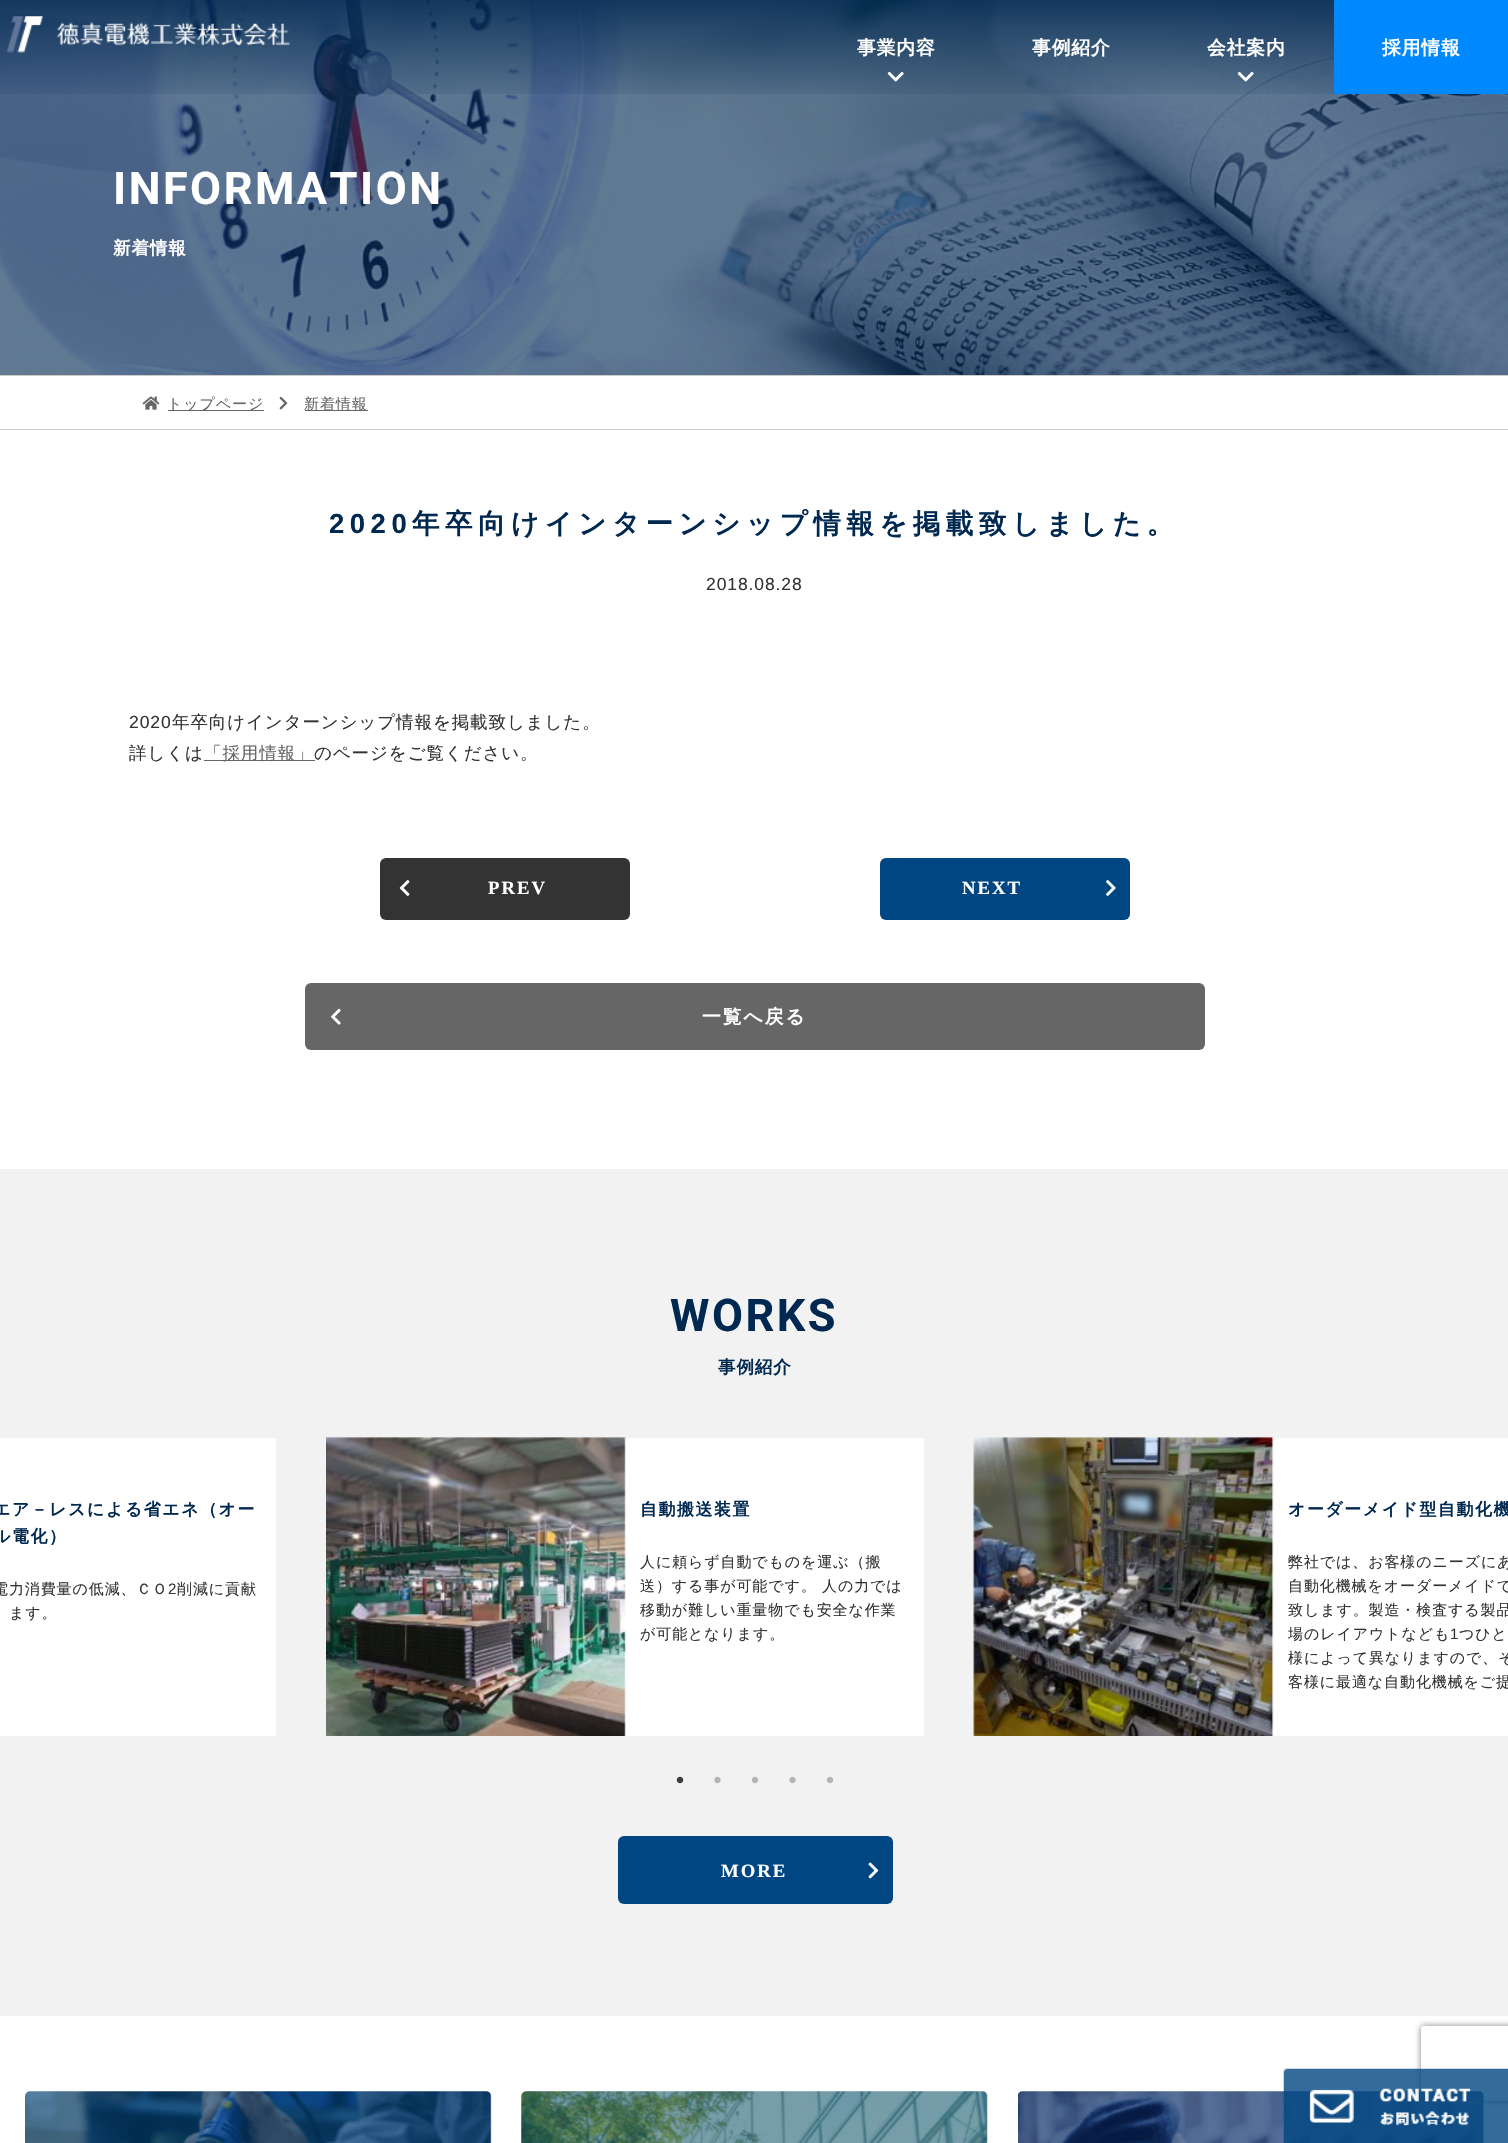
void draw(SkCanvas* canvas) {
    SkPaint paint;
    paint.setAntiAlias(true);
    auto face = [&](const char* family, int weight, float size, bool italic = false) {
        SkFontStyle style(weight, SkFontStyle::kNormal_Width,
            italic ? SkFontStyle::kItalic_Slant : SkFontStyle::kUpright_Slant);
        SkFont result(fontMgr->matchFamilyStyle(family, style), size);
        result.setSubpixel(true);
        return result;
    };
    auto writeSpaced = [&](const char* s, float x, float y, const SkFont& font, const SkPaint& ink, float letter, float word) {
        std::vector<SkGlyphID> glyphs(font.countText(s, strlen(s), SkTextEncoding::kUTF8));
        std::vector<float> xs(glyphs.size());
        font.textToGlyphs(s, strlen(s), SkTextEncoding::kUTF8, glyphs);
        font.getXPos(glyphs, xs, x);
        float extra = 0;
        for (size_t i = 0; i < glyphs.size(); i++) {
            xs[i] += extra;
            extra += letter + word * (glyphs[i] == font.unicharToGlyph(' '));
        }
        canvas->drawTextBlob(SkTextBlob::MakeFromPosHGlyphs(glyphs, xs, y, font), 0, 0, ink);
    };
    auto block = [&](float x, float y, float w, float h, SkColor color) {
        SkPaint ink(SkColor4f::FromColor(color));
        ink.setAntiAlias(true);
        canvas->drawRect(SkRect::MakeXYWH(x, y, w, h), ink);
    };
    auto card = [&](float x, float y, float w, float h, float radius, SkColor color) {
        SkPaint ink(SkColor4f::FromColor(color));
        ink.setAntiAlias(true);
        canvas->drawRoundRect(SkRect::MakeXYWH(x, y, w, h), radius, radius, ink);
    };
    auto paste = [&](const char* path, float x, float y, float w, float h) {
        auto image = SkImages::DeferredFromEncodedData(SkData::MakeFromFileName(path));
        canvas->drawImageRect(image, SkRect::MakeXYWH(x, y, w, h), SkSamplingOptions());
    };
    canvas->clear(SK_ColorWHITE);
    paste("pic5.png", 0, 0, 1508, 375);
    paste("pic1.png", 6, 16, 284, 37);
    auto kFont1 = face("WenQuanYi Zen Hei", 700, 18.75f);
    paint.setColor(SK_ColorWHITE);
    writeSpaced("事業内容", 857, 54, kFont1, paint, 0.9f, 0);
    paste("pic2.png", 887, 71, 17, 11);
    writeSpaced("事例紹介", 1032, 54, kFont1, paint, 0.9f, 0);
    writeSpaced("会社案内", 1207, 54, kFont1, paint, 0.9f, 0);
    paste("pic3.png", 1237, 71, 17, 11);
    block(1334, 0, 174, 94, SkColorSetRGB(0, 137, 255));
    writeSpaced("採用情報", 1382, 54, kFont1, paint, 0.9f, 0);
    paste("pic19.png", 1018, 2091, 466, 52);
    canvas->save();
    canvas->clipPath(SkPathBuilder(SkPathFillType::kEvenOdd).moveTo(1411, 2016).lineTo(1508, 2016).lineTo(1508, 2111).lineTo(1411, 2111).close().moveTo(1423.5f, 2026).lineTo(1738.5f, 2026).cubicTo(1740, 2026, 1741, 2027, 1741, 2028.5f).lineTo(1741, 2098.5f).cubicTo(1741, 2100, 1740, 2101, 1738.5f, 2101).lineTo(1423.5f, 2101).cubicTo(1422, 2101, 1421, 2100, 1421, 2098.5f).lineTo(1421, 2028.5f).cubicTo(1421, 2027, 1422, 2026, 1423.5f, 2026).close().detach(), true);
    paint.setColor(SkColorSetRGB(128, 128, 128));
    paint.setMaskFilter(SkMaskFilter::MakeBlur(kNormal_SkBlurStyle, 3));
    canvas->drawRoundRect(SkRect::MakeXYWH(1421, 2026, 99, 75), 2.5f, 2.5f, paint);
    paint.setMaskFilter(nullptr);
    canvas->restore();
    paste("pic4.png", 1283, 2068, 225, 75);
    auto kFont2 = face("Roboto", 700, 45);
    paint.setColor(SK_ColorWHITE);
    writeSpaced("INFORMATION", 113, 204, kFont2, paint, 2.5f, 0);
    auto kFont3 = face("WenQuanYi Zen Hei", 700, 17.5f);
    writeSpaced("新着情報", 113, 254, kFont3, paint, 0.9f, 0);
    block(0, 375, 1508, 1, SkColorSetRGB(204, 204, 204));
    block(0, 429, 1508, 1, SkColorSetRGB(204, 204, 204));
    paste("pic6.png", 142, 396, 18, 14);
    block(168, 410, 96, 1, SkColorSetRGB(102, 102, 102));
    auto kFont4 = face("WenQuanYi Zen Hei", 500, 15);
    paint.setColor(SkColorSetRGB(102, 102, 102));
    writeSpaced("トップページ", 167, 409, kFont4, paint, 0.9f, 0);
    paste("pic7.png", 279, 396, 9, 14);
    block(305, 410, 63, 1, SkColorSetRGB(102, 102, 102));
    writeSpaced("新着情報", 304, 409, kFont4, paint, 0.9f, 0);
    auto kFont5 = face("Liberation Sans", 700, 27.5f);
    paint.setColor(SkColorSetRGB(0, 40, 80));
    writeSpaced("2020", 329, 533, kFont5, paint, 5.5f, 0);
    auto kFont6 = face("WenQuanYi Zen Hei", 700, 27.5f);
    writeSpaced("年卒向けインターンシップ情報を掲載致しました。", 412, 533, kFont6, paint, 5.5f, 0);
    auto kFont7 = face("Liberation Sans", 400, 17.5f);
    paint.setColor(SkColorSetRGB(51, 51, 51));
    writeSpaced("2018.08.28", 706, 590, kFont7, paint, 0.9f, 0);
    writeSpaced("2020", 129, 728, kFont7, paint, 0.9f, 0);
    auto kFont8 = face("WenQuanYi Zen Hei", 500, 17.5f);
    writeSpaced("年卒向けインターンシップ情報を掲載致しました。", 172, 728, kFont8, paint, 0.9f, 0);
    writeSpaced("詳しくは", 129, 759, kFont8, paint, 0.9f, 0);
    block(204, 760, 111, 1, SkColorSetRGB(102, 102, 102));
    paint.setColor(SkColorSetRGB(102, 102, 102));
    writeSpaced("「採用情報」", 204, 759, kFont8, paint, 0.9f, 0);
    paint.setColor(SkColorSetRGB(51, 51, 51));
    writeSpaced("のページをご覧ください。", 314, 759, kFont8, paint, 0.9f, 0);
    card(380, 858, 250, 62, 6, SkColorSetRGB(51, 51, 51));
    paste("pic8.png", 399, 880, 11, 16);
    auto kFont9 = face("Liberation Serif", 700, 18.75f);
    paint.setColor(SK_ColorWHITE);
    writeSpaced("PREV", 488, 894, kFont9, paint, 2, 0);
    card(880, 858, 250, 62, 6, SkColorSetRGB(0, 70, 130));
    writeSpaced("NEXT", 962, 894, kFont9, paint, 2, 0);
    paste("pic9.png", 1106, 880, 10, 16);
    card(305, 983, 900, 67, 6, SkColorSetRGB(102, 102, 102));
    paste("pic10.png", 331, 1008, 10, 17);
    writeSpaced("一覧へ戻る", 702, 1023, kFont1, paint, 2, 0);
    block(0, 1169, 1508, 847, SkColorSetRGB(242, 242, 242));
    paint.setColor(SkColorSetRGB(0, 40, 80));
    writeSpaced("WORKS", 670, 1331, kFont2, paint, 2.5f, 0);
    writeSpaced("事例紹介", 718, 1373, kFont3, paint, 0.9f, 0);
    block(0, 1438, 276, 298, SK_ColorWHITE);
    auto kFont10 = face("WenQuanYi Zen Hei", 700, 16.9f);
    writeSpaced("エア－レスによる省エネ（オー", -7, 1515, kFont10, paint, 1.6f, 0);
    writeSpaced("ル電化）", -7, 1542, kFont10, paint, 1.6f, 0);
    paint.setColor(SkColorSetRGB(51, 51, 51));
    writeSpaced("電力消費量の低減、ＣＯ", -7, 1594, kFont4, paint, 0.9f, 0);
    auto kFont11 = face("Liberation Sans", 400, 15);
    writeSpaced("2", 168, 1594, kFont11, paint, 0.9f, 0);
    writeSpaced("削減に貢献", 177, 1594, kFont4, paint, 0.9f, 0);
    writeSpaced("ます。", 9, 1618, kFont4, paint, 0.9f, 0);
    block(326, 1438, 598, 298, SK_ColorWHITE);
    paste("pic11.png", 326, 1437, 300, 299);
    paint.setColor(SkColorSetRGB(0, 40, 80));
    writeSpaced("自動搬送装置", 640, 1515, kFont10, paint, 1.6f, 0);
    paint.setColor(SkColorSetRGB(51, 51, 51));
    writeSpaced("人に頼らず自動でものを運ぶ（搬", 640, 1567, kFont4, paint, 0.9f, 0);
    writeSpaced("送）する事が可能です。 人の力では", 640, 1591, kFont4, paint, 0.9f, 0);
    writeSpaced("移動が難しい重量物でも安全な作業", 640, 1615, kFont4, paint, 0.9f, 0);
    writeSpaced("が可能となります。", 640, 1639, kFont4, paint, 0.9f, 0);
    block(974, 1438, 534, 298, SK_ColorWHITE);
    paste("pic12.png", 973, 1437, 301, 299);
    paint.setColor(SkColorSetRGB(0, 40, 80));
    writeSpaced("オーダーメイド型自動化機", 1288, 1515, kFont10, paint, 1.6f, 0);
    paint.setColor(SkColorSetRGB(51, 51, 51));
    writeSpaced("弊社では、お客様のニーズにあ", 1288, 1567, kFont4, paint, 0.9f, 0);
    writeSpaced("自動化機械をオーダーメイドで", 1288, 1591, kFont4, paint, 0.9f, 0);
    writeSpaced("致します。製造・検査する製品", 1288, 1615, kFont4, paint, 0.9f, 0);
    writeSpaced("場のレイアウトなども", 1288, 1639, kFont4, paint, 0.9f, 0);
    writeSpaced("1", 1450, 1639, kFont11, paint, 0.9f, 0);
    writeSpaced("つひと", 1459, 1639, kFont4, paint, 0.9f, 0);
    writeSpaced("様によって異なりますので、そ", 1288, 1663, kFont4, paint, 0.9f, 0);
    writeSpaced("客様に最適な自動化機械をご提", 1288, 1687, kFont4, paint, 0.9f, 0);
    paste("pic13.png", 676, 1776, 8, 8);
    paste("pic14.png", 714, 1776, 7, 8);
    paste("pic15.png", 751, 1776, 8, 8);
    paste("pic14.png", 789, 1776, 7, 8);
    paste("pic15.png", 826, 1776, 8, 8);
    card(618, 1836, 275, 68, 6, SkColorSetRGB(0, 70, 130));
    paint.setColor(SK_ColorWHITE);
    writeSpaced("MORE", 721, 1877, kFont9, paint, 2, 0);
    paste("pic16.png", 868, 1862, 11, 17);
    paste("pic17.png", 25, 2091, 467, 52);
    paste("pic18.png", 521, 2091, 467, 52);
}
